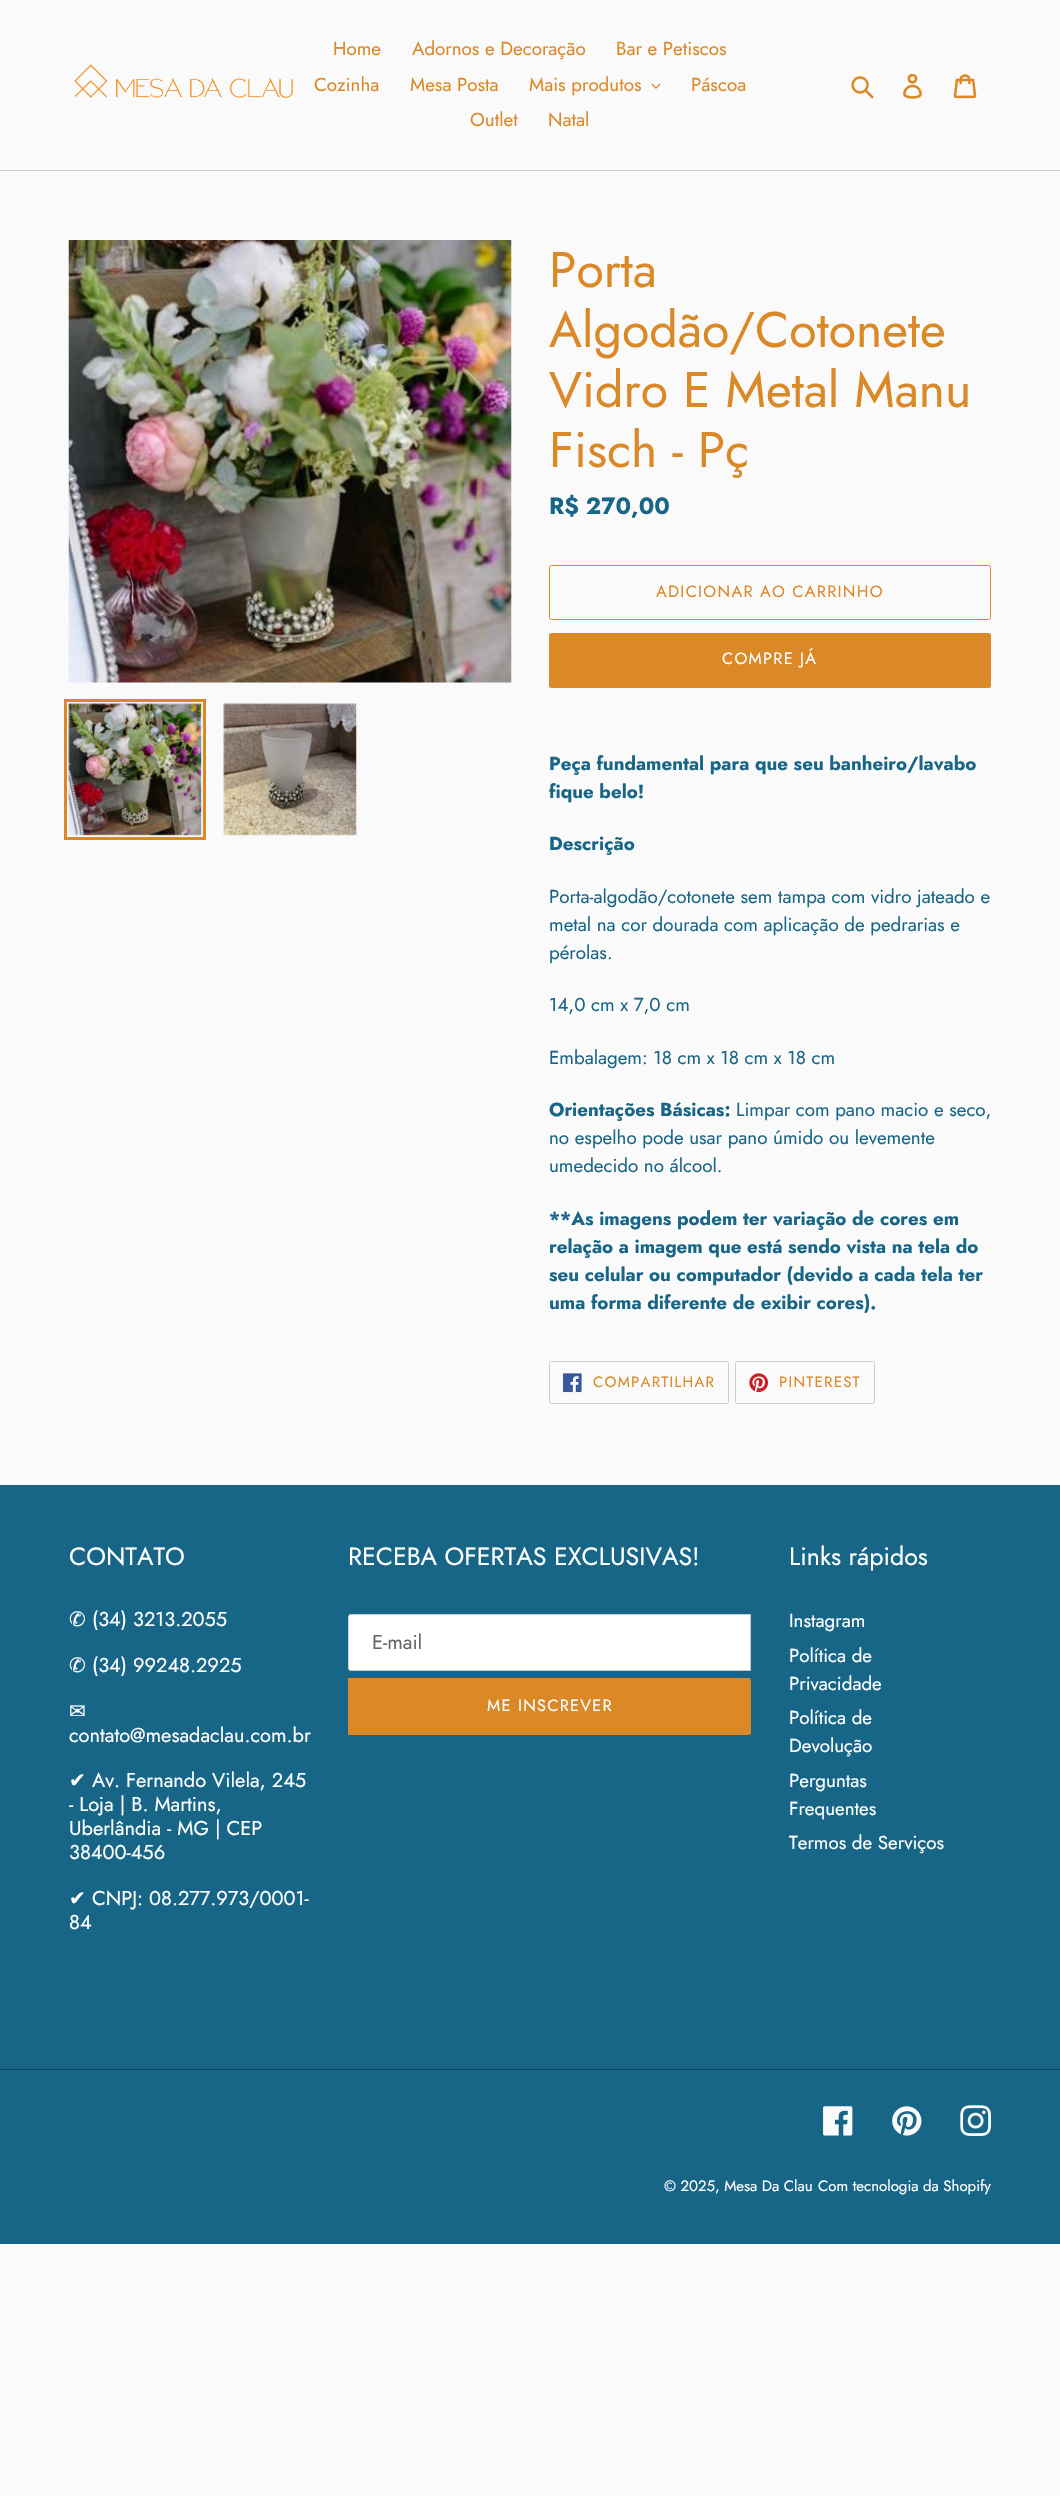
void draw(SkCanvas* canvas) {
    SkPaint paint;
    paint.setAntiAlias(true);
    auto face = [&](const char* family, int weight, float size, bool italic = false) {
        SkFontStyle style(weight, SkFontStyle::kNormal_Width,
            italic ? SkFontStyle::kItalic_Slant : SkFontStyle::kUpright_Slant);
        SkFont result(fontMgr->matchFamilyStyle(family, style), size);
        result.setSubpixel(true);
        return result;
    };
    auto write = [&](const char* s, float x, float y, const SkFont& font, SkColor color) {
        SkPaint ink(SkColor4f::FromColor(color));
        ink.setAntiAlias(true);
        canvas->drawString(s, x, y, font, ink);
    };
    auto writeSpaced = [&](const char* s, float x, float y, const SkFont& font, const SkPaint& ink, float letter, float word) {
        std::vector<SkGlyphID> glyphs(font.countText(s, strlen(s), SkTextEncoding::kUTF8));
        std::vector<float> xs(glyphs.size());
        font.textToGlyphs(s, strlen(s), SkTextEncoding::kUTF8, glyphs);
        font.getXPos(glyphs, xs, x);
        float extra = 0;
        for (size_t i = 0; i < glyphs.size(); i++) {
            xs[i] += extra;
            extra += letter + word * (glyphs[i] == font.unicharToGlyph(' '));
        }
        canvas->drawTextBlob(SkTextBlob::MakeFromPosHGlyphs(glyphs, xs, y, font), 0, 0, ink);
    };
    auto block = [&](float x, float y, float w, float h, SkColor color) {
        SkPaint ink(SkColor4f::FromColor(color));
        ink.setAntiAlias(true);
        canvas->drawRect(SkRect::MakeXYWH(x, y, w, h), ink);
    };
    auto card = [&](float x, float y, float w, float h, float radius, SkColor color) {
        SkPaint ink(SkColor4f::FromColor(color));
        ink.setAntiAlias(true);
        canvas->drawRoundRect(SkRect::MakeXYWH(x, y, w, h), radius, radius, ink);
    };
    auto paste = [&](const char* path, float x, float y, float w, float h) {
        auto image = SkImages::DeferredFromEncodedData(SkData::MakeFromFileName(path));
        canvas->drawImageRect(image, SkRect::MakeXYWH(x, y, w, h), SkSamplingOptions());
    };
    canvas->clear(SkColorSetRGB(250, 250, 250));
    block(0, 170, 1060, 1, SkColorSetRGB(204, 204, 204));
    paste("pic1.png", 74, 64, 219, 34);
    auto kFont1 = face("Jost", 400, 18.75f);
    write("Home", 333, 55, kFont1, SkColorSetRGB(219, 136, 39));
    write("Adornos e Decoração", 412, 55, kFont1, SkColorSetRGB(219, 136, 39));
    write("Bar e Petiscos", 616, 55, kFont1, SkColorSetRGB(219, 136, 39));
    write("Cozinha", 314, 91, kFont1, SkColorSetRGB(219, 136, 39));
    write("Mesa Posta", 410, 91, kFont1, SkColorSetRGB(219, 136, 39));
    write("Mais produtos", 529, 91, kFont1, SkColorSetRGB(219, 136, 39));
    paste("pic2.png", 651, 83, 10, 6);
    write("Páscoa", 691, 91, kFont1, SkColorSetRGB(219, 136, 39));
    write("Outlet", 470, 126, kFont1, SkColorSetRGB(219, 136, 39));
    write("Natal", 548, 126, kFont1, SkColorSetRGB(219, 136, 39));
    paste("pic3.png", 851, 76, 23, 23);
    paste("pic4.png", 903, 74, 19, 25);
    paste("pic5.png", 953, 74, 24, 25);
    paste("pic6.png", 68, 240, 444, 443);
    paint.setStyle(SkPaint::kStroke_Style);
    paint.setStrokeWidth(3);
    paint.setColor(SkColorSetRGB(219, 136, 39));
    canvas->drawRect(SkRect::MakeXYWH(65.5f, 700.5f, 139, 138), paint);
    paste("pic7.png", 68, 703, 134, 133);
    paste("pic8.png", 223, 703, 134, 133);
    auto kFont2 = face("Jost", 400, 50);
    write("Porta", 549, 287, kFont2, SkColorSetRGB(219, 136, 39));
    write("Algodão/Cotonete", 549, 347, kFont2, SkColorSetRGB(219, 136, 39));
    write("Vidro E Metal Manu", 549, 407, kFont2, SkColorSetRGB(219, 136, 39));
    write("Fisch - Pç", 549, 467, kFont2, SkColorSetRGB(219, 136, 39));
    auto kFont3 = face("Jost", 700, 23.5f);
    write("R$ 270,00", 549, 514, kFont3, SkColorSetRGB(24, 102, 135));
    paint.setStrokeWidth(1);
    canvas->drawRoundRect(SkRect::MakeXYWH(549.5f, 565.5f, 441, 54), 2, 2, paint);
    auto kFont4 = face("Jost", 400, 16.25f);
    paint.setStyle(SkPaint::kFill_Style);
    writeSpaced("ADICIONAR AO CARRINHO", 656, 597, kFont4, paint, 1.3f, 0);
    card(549, 633, 442, 55, 2.5f, SkColorSetRGB(219, 136, 39));
    paint.setColor(SK_ColorWHITE);
    writeSpaced("COMPRE JÁ", 722, 664, kFont4, paint, 1.3f, 0);
    auto kFont5 = face("Jost", 700, 18.75f);
    write("Peça fundamental para que seu banheiro/lavabo", 549, 770, kFont5, SkColorSetRGB(24, 102, 135));
    write("fique belo!", 549, 798, kFont5, SkColorSetRGB(24, 102, 135));
    write("Descrição", 549, 850, kFont5, SkColorSetRGB(24, 102, 135));
    write("Porta-algodão/cotonete sem tampa com vidro jateado e", 549, 903, kFont1, SkColorSetRGB(24, 102, 135));
    write("metal na cor dourada com aplicação de pedrarias e", 549, 931, kFont1, SkColorSetRGB(24, 102, 135));
    write("pérolas.", 549, 959, kFont1, SkColorSetRGB(24, 102, 135));
    write("14,0 cm x 7,0 cm", 549, 1011, kFont1, SkColorSetRGB(24, 102, 135));
    write("Embalagem: 18 cm x 18 cm x 18 cm", 549, 1064, kFont1, SkColorSetRGB(24, 102, 135));
    write("Orientações Básicas:", 549, 1116, kFont5, SkColorSetRGB(24, 102, 135));
    write("Limpar com pano macio e seco,", 736, 1116, kFont1, SkColorSetRGB(24, 102, 135));
    write("no espelho pode usar pano úmido ou levemente", 549, 1144, kFont1, SkColorSetRGB(24, 102, 135));
    write("umedecido no álcool.", 549, 1172, kFont1, SkColorSetRGB(24, 102, 135));
    write("**As imagens podem ter variação de cores em", 549, 1225, kFont5, SkColorSetRGB(24, 102, 135));
    write("relação a imagem que está sendo vista na tela do", 549, 1253, kFont5, SkColorSetRGB(24, 102, 135));
    write("seu celular ou computador (devido a cada tela ter", 549, 1281, kFont5, SkColorSetRGB(24, 102, 135));
    write("uma forma diferente de exibir cores).", 549, 1309, kFont5, SkColorSetRGB(24, 102, 135));
    paint.setStyle(SkPaint::kStroke_Style);
    paint.setColor(SkColorSetRGB(204, 204, 204));
    canvas->drawRoundRect(SkRect::MakeXYWH(549.5f, 1361.5f, 179, 42), 2, 2, paint);
    paste("pic9.png", 563, 1373, 19, 20);
    auto kFont6 = face("Jost", 400, 15);
    paint.setStyle(SkPaint::kFill_Style);
    paint.setColor(SkColorSetRGB(219, 136, 39));
    writeSpaced("COMPARTILHAR", 593, 1387, kFont6, paint, 1.25f, 0);
    paint.setStyle(SkPaint::kStroke_Style);
    paint.setColor(SkColorSetRGB(204, 204, 204));
    canvas->drawRoundRect(SkRect::MakeXYWH(735.5f, 1361.5f, 139, 42), 2, 2, paint);
    paste("pic10.png", 749, 1373, 20, 20);
    paint.setStyle(SkPaint::kFill_Style);
    paint.setColor(SkColorSetRGB(219, 136, 39));
    writeSpaced("PINTEREST", 779, 1387, kFont6, paint, 1.25f, 0);
    block(0, 1485, 1060, 759, SkColorSetRGB(24, 102, 135));
    auto kFont7 = face("Jost", 400, 25);
    write("CONTATO", 69, 1565, kFont7, SK_ColorWHITE);
    auto kFont8 = face("DejaVu Sans", 400, 20);
    write("✆", 69, 1626, kFont8, SK_ColorWHITE);
    auto kFont9 = face("Jost", 400, 20);
    write("(34) 3213.2055", 92, 1626, kFont9, SK_ColorWHITE);
    write("✆", 69, 1672, kFont8, SK_ColorWHITE);
    write("(34) 99248.2925", 92, 1672, kFont9, SK_ColorWHITE);
    write("✉", 69, 1718, kFont8, SK_ColorWHITE);
    write("contato@mesadaclau.com.br", 69, 1742, kFont9, SK_ColorWHITE);
    write("✔", 69, 1787, kFont8, SK_ColorWHITE);
    write("Av. Fernando Vilela, 245", 92, 1787, kFont9, SK_ColorWHITE);
    write("- Loja | B. Martins,", 69, 1811, kFont9, SK_ColorWHITE);
    write("Uberlândia - MG | CEP", 69, 1835, kFont9, SK_ColorWHITE);
    write("38400-456", 69, 1859, kFont9, SK_ColorWHITE);
    write("✔", 69, 1905, kFont8, SK_ColorWHITE);
    write("CNPJ: 08.277.973/0001-", 92, 1905, kFont9, SK_ColorWHITE);
    write("84", 69, 1929, kFont9, SK_ColorWHITE);
    write("RECEBA OFERTAS EXCLUSIVAS!", 348, 1565, kFont7, SK_ColorWHITE);
    paint.setColor(SK_ColorWHITE);
    canvas->drawPath(SkPathBuilder().moveTo(350.5f, 1614.5f).lineTo(750.5f, 1614.5f).lineTo(750.5f, 1670.5f).lineTo(350.5f, 1670.5f).cubicTo(349.5f, 1670.5f, 348.5f, 1669.5f, 348.5f, 1668.5f).lineTo(348.5f, 1616.5f).cubicTo(348.5f, 1615.5f, 349.5f, 1614.5f, 350.5f, 1614.5f).close().detach(), paint);
    paint.setStyle(SkPaint::kStroke_Style);
    paint.setColor(SkColorSetRGB(204, 204, 204));
    canvas->drawPath(SkPathBuilder().moveTo(350.5f, 1614.5f).lineTo(750.5f, 1614.5f).lineTo(750.5f, 1670.5f).lineTo(350.5f, 1670.5f).cubicTo(349.5f, 1670.5f, 348.5f, 1669.5f, 348.5f, 1668.5f).lineTo(348.5f, 1616.5f).cubicTo(348.5f, 1615.5f, 349.5f, 1614.5f, 350.5f, 1614.5f).close().detach(), paint);
    write("E-mail", 372, 1649, kFont9, SkColorSetRGB(102, 102, 102));
    paint.setStyle(SkPaint::kFill_Style);
    paint.setColor(SkColorSetRGB(219, 136, 39));
    canvas->drawPath(SkPathBuilder().moveTo(348, 1678).lineTo(748.5f, 1678).cubicTo(750, 1678, 751, 1679, 751, 1680.5f).lineTo(751, 1732.5f).cubicTo(751, 1734, 750, 1735, 748.5f, 1735).lineTo(348, 1735).close().detach(), paint);
    paint.setColor(SK_ColorWHITE);
    writeSpaced("ME INSCREVER", 487, 1711, kFont4, paint, 1.3f, 0);
    write("Links rápidos", 789, 1565, kFont7, SK_ColorWHITE);
    write("Instagram", 789, 1627, kFont1, SK_ColorWHITE);
    write("Política de", 789, 1662, kFont1, SK_ColorWHITE);
    write("Privacidade", 789, 1690, kFont1, SK_ColorWHITE);
    write("Política de", 789, 1724, kFont1, SK_ColorWHITE);
    write("Devolução", 789, 1752, kFont1, SK_ColorWHITE);
    write("Perguntas", 789, 1787, kFont1, SK_ColorWHITE);
    write("Frequentes", 789, 1815, kFont1, SK_ColorWHITE);
    write("Termos de Serviços", 789, 1849, kFont1, SK_ColorWHITE);
    block(0, 2069, 1060, 1, SkColorSetRGB(16, 69, 92));
    paste("pic11.png", 823, 2106, 30, 30);
    paste("pic12.png", 892, 2106, 30, 30);
    paste("pic13.png", 960, 2105, 31, 31);
    write("© 2025, Mesa Da Clau", 664, 2191, kFont6, SK_ColorWHITE);
    write("Com tecnologia da Shopify", 818, 2191, kFont6, SK_ColorWHITE);
}
